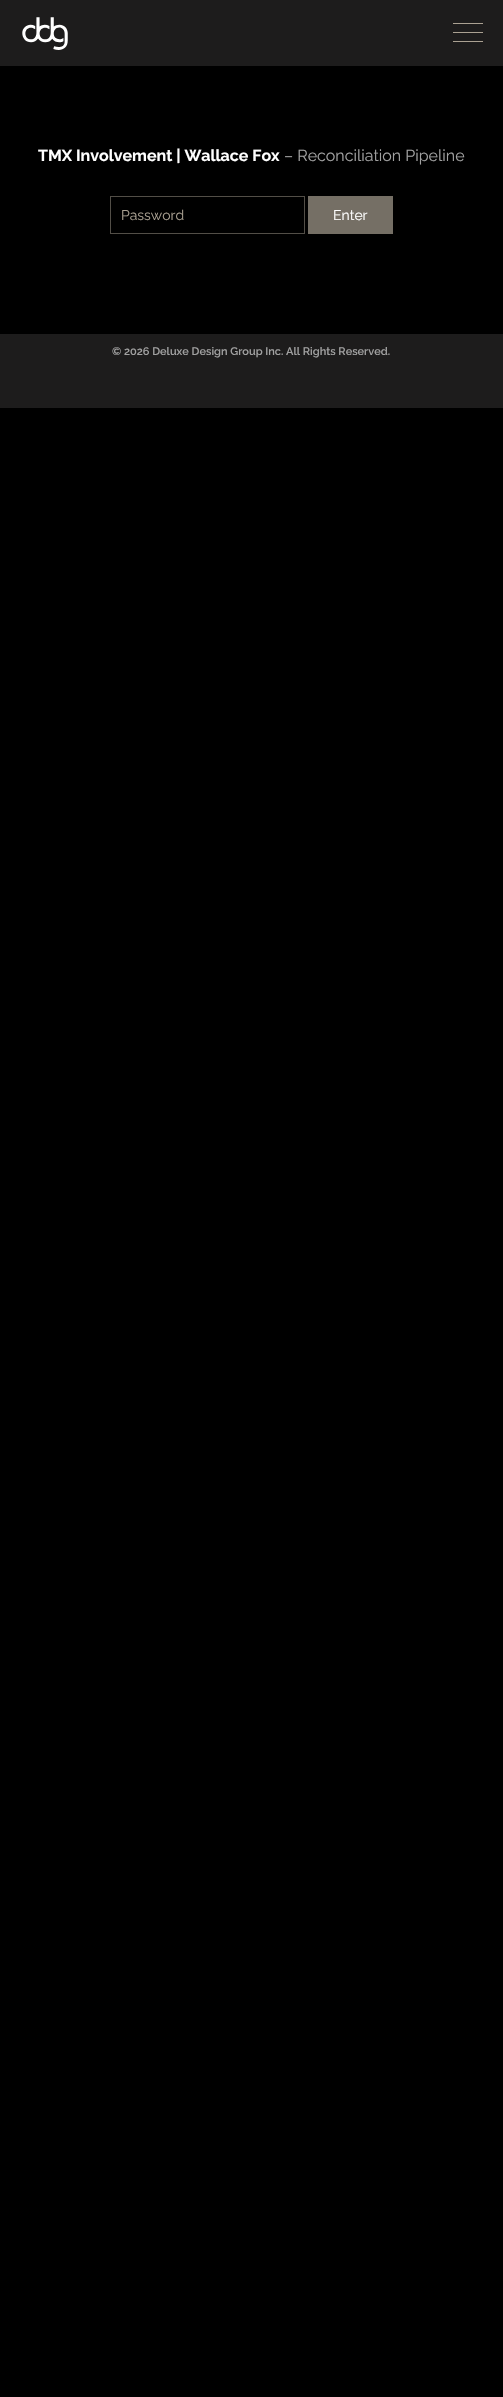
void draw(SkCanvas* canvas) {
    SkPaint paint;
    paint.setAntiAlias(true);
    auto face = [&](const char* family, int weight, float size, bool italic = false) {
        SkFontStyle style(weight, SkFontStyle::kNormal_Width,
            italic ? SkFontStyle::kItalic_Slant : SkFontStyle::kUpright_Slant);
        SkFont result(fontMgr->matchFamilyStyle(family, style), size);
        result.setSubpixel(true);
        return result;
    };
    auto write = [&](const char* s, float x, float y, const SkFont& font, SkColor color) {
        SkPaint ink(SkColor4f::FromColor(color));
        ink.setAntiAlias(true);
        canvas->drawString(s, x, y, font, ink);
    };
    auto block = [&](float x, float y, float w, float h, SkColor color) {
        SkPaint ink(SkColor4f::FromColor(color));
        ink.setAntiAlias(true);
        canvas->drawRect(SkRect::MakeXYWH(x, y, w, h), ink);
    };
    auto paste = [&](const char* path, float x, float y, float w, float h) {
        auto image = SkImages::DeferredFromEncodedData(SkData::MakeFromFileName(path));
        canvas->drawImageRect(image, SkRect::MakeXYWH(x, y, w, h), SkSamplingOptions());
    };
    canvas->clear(SK_ColorBLACK);
    block(0, 0, 503, 66, SkColorSetRGB(29, 28, 28));
    paste("pic1.png", 22, 17, 46, 33);
    block(453, 32, 30, 1, SkColorSetRGB(170, 161, 146));
    block(453, 23, 30, 1, SkColorSetRGB(170, 161, 146));
    block(453, 41, 30, 1, SkColorSetRGB(170, 161, 146));
    auto kFont1 = face("Raleway", 700, 16);
    write("TMX Involvement | Wallace Fox", 38, 161, kFont1, SK_ColorWHITE);
    auto kFont2 = face("Raleway", 400, 16);
    write("– Reconciliation Pipeline", 284, 161, kFont2, SkColorSetRGB(161, 161, 161));
    paint.setStyle(SkPaint::kStroke_Style);
    paint.setStrokeWidth(1);
    paint.setColor(SkColorSetRGB(82, 78, 71));
    canvas->drawRect(SkRect::MakeXYWH(110.5f, 196.5f, 194, 37), paint);
    auto kFont3 = face("Raleway", 400, 14);
    write("Password", 121, 220, kFont3, SkColorSetRGB(170, 161, 146));
    block(308, 196, 85, 38, SkColorSetRGB(117, 111, 101));
    write("Enter", 333, 220, kFont3, SK_ColorWHITE);
    block(0, 334, 503, 74, SkColorSetRGB(29, 28, 28));
    auto kFont4 = face("Raleway", 600, 11);
    write("© 2026 Deluxe Design Group Inc. All Rights Reserved.", 112, 355, kFont4, SkColorSetRGB(161, 161, 161));
}
